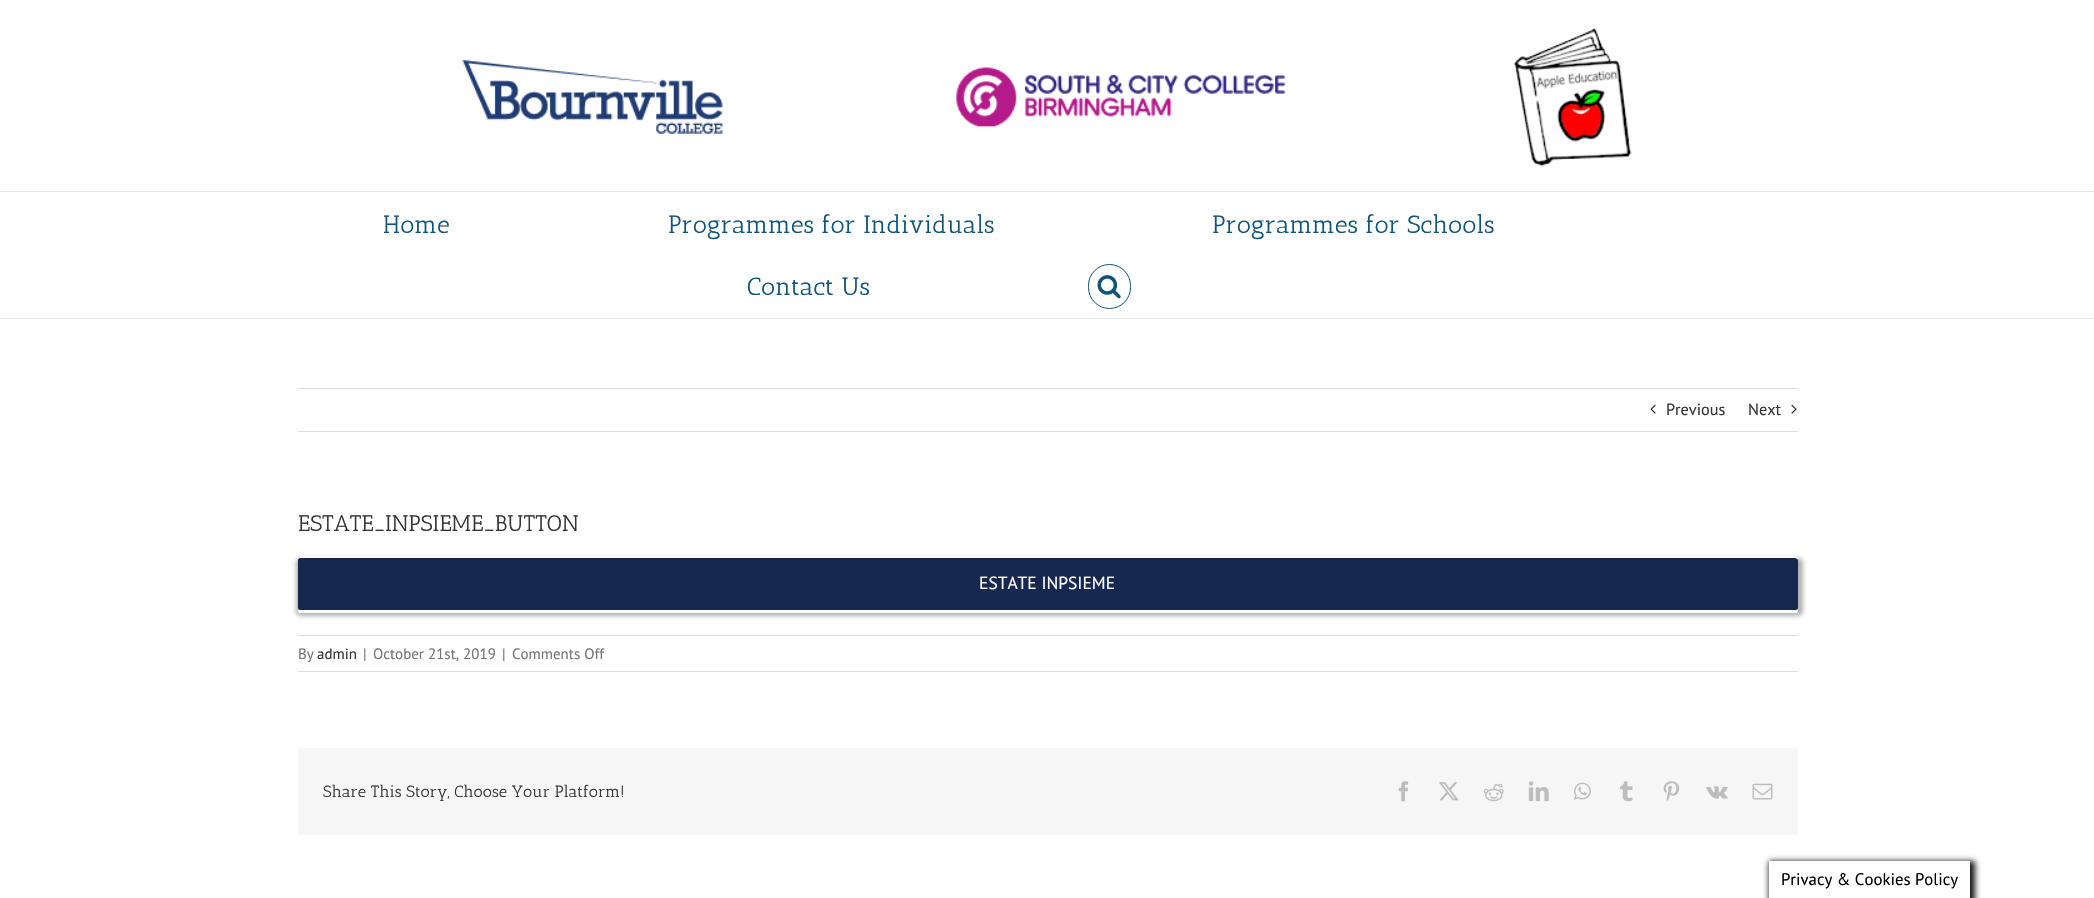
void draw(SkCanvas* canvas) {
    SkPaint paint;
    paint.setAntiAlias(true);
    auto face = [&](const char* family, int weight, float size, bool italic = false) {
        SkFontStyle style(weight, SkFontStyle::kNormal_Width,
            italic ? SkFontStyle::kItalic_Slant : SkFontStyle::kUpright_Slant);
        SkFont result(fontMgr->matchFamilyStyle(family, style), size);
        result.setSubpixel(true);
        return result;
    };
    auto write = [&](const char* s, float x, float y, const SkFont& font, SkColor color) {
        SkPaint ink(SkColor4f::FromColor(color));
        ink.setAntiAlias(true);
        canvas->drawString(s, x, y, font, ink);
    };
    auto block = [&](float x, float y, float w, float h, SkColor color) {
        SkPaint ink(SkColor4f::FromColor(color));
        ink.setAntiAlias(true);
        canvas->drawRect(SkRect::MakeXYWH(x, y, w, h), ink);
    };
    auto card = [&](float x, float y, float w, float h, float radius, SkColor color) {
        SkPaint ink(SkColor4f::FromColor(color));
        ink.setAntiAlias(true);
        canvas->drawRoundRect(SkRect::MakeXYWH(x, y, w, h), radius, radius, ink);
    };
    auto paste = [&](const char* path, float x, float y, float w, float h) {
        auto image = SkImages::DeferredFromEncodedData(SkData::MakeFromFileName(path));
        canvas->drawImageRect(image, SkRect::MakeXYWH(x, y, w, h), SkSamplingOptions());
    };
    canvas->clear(SK_ColorWHITE);
    block(0, 191, 2094, 1, SkColorSetRGB(229, 229, 229));
    paste("pic1.png", 462, 28, 1170, 139);
    block(0, 318, 2094, 1, SkColorSetRGB(229, 229, 229));
    auto kFont1 = face("Antic Slab", 400, 25);
    write("Home", 383, 233, kFont1, SkColorSetRGB(16, 83, 120));
    write("Programmes for Individuals", 668, 233, kFont1, SkColorSetRGB(16, 83, 120));
    write("Programmes for Schools", 1212, 233, kFont1, SkColorSetRGB(16, 83, 120));
    write("Contact Us", 747, 295, kFont1, SkColorSetRGB(16, 83, 120));
    paint.setStyle(SkPaint::kStroke_Style);
    paint.setStrokeWidth(1);
    paint.setColor(SkColorSetRGB(16, 83, 120));
    canvas->drawRoundRect(SkRect::MakeXYWH(1088.5f, 264.5f, 42, 44), 21, 21, paint);
    paste("pic2.png", 1097, 275, 24, 24);
    block(298, 388, 1500, 1, SkColorSetRGB(224, 222, 222));
    block(298, 431, 1500, 1, SkColorSetRGB(224, 222, 222));
    paste("pic3.png", 1650, 404, 6, 10);
    auto kFont2 = face("PT Sans", 400, 16.25f);
    write("Previous", 1666, 415, kFont2, SkColorSetRGB(51, 51, 51));
    write("Next", 1748, 415, kFont2, SkColorSetRGB(51, 51, 51));
    paste("pic4.png", 1791, 404, 6, 10);
    auto kFont3 = face("Antic Slab", 400, 22.5f);
    write("ESTATE_INPSIEME_BUTTON", 298, 531, kFont3, SkColorSetRGB(51, 51, 51));
    paint.setStyle(SkPaint::kFill_Style);
    paint.setColor(SkColorSetARGB(77, 0, 0, 0));
    paint.setMaskFilter(SkMaskFilter::MakeBlur(kNormal_SkBlurStyle, 2));
    canvas->drawRoundRect(SkRect::MakeXYWH(296, 558, 1507, 58), 5, 5, paint);
    paint.setMaskFilter(nullptr);
    paint.setColor(SK_ColorWHITE);
    canvas->drawPath(SkPathBuilder().moveTo(298, 609).lineTo(298, 610).cubicTo(298, 612, 299, 613, 300, 613).lineTo(1796, 613).cubicTo(1797, 613, 1798, 612, 1798, 610).lineTo(1798, 562).lineTo(1798, 560).lineTo(1798, 608).cubicTo(1798, 609, 1796, 610, 1795, 610).lineTo(300, 610).cubicTo(299, 610, 298, 610, 298, 609).close().detach(), paint);
    card(298, 556, 1500, 54, 2.5f, SkColorSetRGB(23, 40, 80));
    canvas->drawPath(SkPathBuilder().moveTo(300, 558).lineTo(1795, 558).cubicTo(1796, 558, 1798, 559, 1798, 560).lineTo(1798, 558).cubicTo(1798, 557, 1797, 556, 1796, 556).lineTo(300, 556).cubicTo(299, 556, 298, 557, 298, 558).lineTo(298, 560).cubicTo(298, 559, 299, 558, 300, 558).close().detach(), paint);
    auto kFont4 = face("PT Sans", 400, 17.5f);
    write("ESTATE INPSIEME", 979, 589, kFont4, SK_ColorWHITE);
    block(298, 635, 1500, 1, SkColorSetRGB(224, 222, 222));
    block(298, 671, 1500, 1, SkColorSetRGB(224, 222, 222));
    auto kFont5 = face("PT Sans", 400, 15);
    write("By", 298, 659, kFont5, SkColorSetRGB(116, 116, 116));
    write("admin", 317, 659, kFont5, SkColorSetRGB(51, 51, 51));
    write("|", 363, 659, kFont5, SkColorSetRGB(116, 116, 116));
    write("October 21st, 2019", 373, 659, kFont5, SkColorSetRGB(116, 116, 116));
    write("|", 502, 659, kFont5, SkColorSetRGB(116, 116, 116));
    write("Comments Off", 512, 659, kFont5, SkColorSetRGB(116, 116, 116));
    block(298, 748, 1500, 87, SkColorSetRGB(246, 246, 246));
    auto kFont6 = face("Antic Slab", 400, 16.25f);
    write("Share This Story, Choose Your Platform!", 323, 797, kFont6, SkColorSetRGB(51, 51, 51));
    paste("pic5.png", 1398, 781, 11, 21);
    paste("pic6.png", 1439, 782, 20, 19);
    paste("pic7.png", 1483, 783, 21, 19);
    paste("pic8.png", 1528, 781, 21, 21);
    paste("pic9.png", 1573, 782, 18, 18);
    paste("pic10.png", 1620, 781, 13, 21);
    paste("pic11.png", 1663, 781, 17, 20);
    paste("pic12.png", 1706, 786, 22, 13);
    paste("pic13.png", 1752, 783, 21, 17);
    paint.setColor(SkColorSetRGB(22, 22, 22));
    paint.setMaskFilter(SkMaskFilter::MakeBlur(kNormal_SkBlurStyle, 3));
    canvas->drawRect(SkRect::MakeXYWH(1769, 861, 206, 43), paint);
    paint.setMaskFilter(nullptr);
    block(1769, 861, 201, 37, SK_ColorWHITE);
    auto kFont7 = face("PT Sans", 400, 16.75f);
    write("Privacy & Cookies Policy", 1781, 885, kFont7, SK_ColorBLACK);
}
